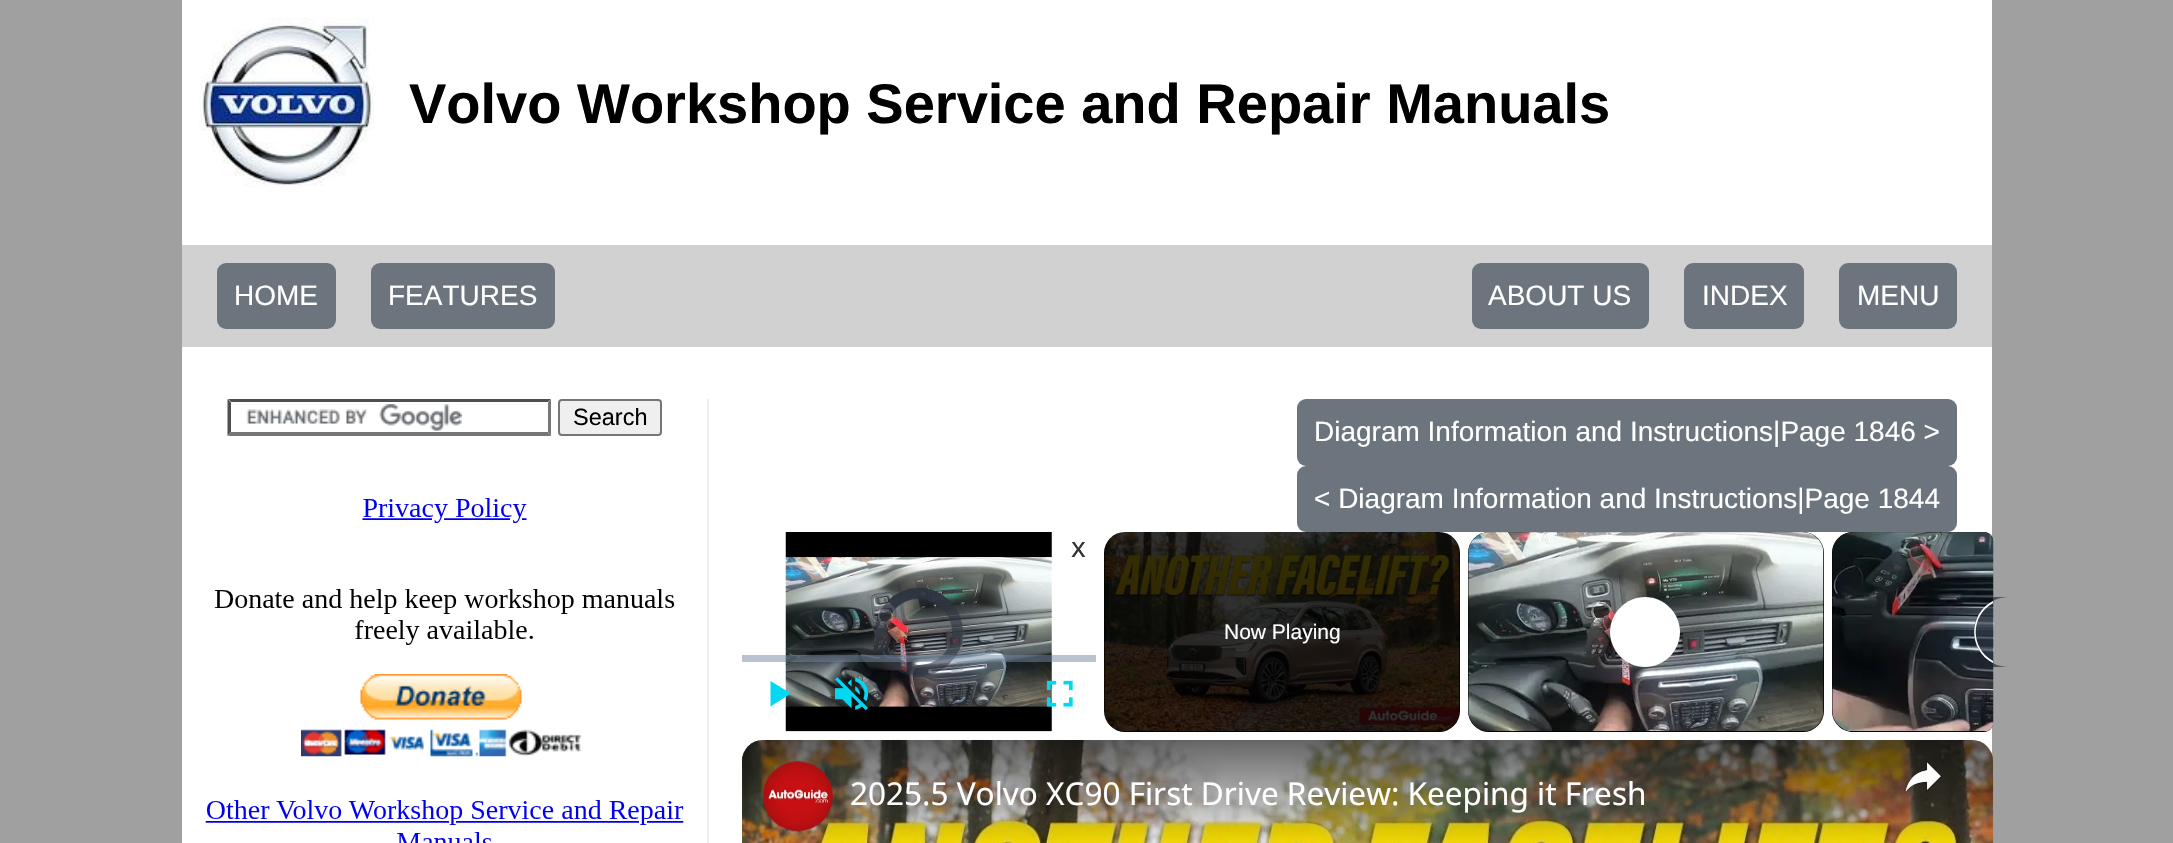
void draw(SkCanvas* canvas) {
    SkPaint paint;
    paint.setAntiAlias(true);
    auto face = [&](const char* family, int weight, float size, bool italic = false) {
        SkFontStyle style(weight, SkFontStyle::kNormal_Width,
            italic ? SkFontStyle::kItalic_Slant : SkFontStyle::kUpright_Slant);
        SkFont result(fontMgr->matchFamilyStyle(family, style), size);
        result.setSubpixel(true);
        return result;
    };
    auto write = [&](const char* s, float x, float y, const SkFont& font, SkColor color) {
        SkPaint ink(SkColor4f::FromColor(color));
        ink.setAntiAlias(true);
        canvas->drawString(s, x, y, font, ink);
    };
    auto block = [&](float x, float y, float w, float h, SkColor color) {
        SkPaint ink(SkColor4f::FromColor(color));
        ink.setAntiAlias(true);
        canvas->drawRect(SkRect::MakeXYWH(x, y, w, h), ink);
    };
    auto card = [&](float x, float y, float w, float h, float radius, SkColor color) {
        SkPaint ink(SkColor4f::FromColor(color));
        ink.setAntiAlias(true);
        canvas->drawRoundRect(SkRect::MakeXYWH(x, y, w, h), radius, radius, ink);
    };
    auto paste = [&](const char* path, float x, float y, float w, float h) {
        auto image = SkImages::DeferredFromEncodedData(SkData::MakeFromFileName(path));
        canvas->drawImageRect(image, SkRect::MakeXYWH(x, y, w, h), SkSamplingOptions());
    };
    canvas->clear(SkColorSetRGB(160, 160, 160));
    block(182, 0, 1810, 843, SK_ColorWHITE);
    paste("pic1.png", 199, 17, 176, 170);
    auto kFont1 = face("Liberation Sans", 700, 56);
    write("Volvo Workshop Service and Repair Manuals", 409, 123, kFont1, SK_ColorBLACK);
    block(182, 245, 1810, 102, SkColorSetRGB(209, 209, 209));
    card(217, 263, 119, 66, 9, SkColorSetRGB(108, 117, 125));
    auto kFont2 = face("Liberation Sans", 400, 28);
    write("HOME", 234, 305, kFont2, SK_ColorWHITE);
    card(371, 263, 184, 66, 9, SkColorSetRGB(108, 117, 125));
    write("FEATURES", 388, 305, kFont2, SK_ColorWHITE);
    card(1472, 263, 177, 66, 9, SkColorSetRGB(108, 117, 125));
    write("ABOUT US", 1488, 305, kFont2, SK_ColorWHITE);
    card(1684, 263, 120, 66, 9, SkColorSetRGB(108, 117, 125));
    write("INDEX", 1702, 305, kFont2, SK_ColorWHITE);
    card(1839, 263, 118, 66, 9, SkColorSetRGB(108, 117, 125));
    write("MENU", 1857, 305, kFont2, SK_ColorWHITE);
    block(707, 399, 2, 444, SkColorSetRGB(239, 239, 239));
    paste("pic2.png", 246, 404, 216, 27);
    paint.setColor(SkColorSetRGB(79, 79, 79));
    canvas->drawPath(SkPathBuilder().moveTo(228, 399).lineTo(551, 399).lineTo(548, 402).lineTo(231, 402).close().detach(), paint);
    paint.setColor(SkColorSetRGB(118, 118, 118));
    canvas->drawPath(SkPathBuilder().moveTo(551, 399).lineTo(551, 436).lineTo(548, 432).lineTo(548, 402.5f).close().detach(), paint);
    canvas->drawPath(SkPathBuilder().moveTo(551, 436).lineTo(228, 436).lineTo(231, 432).lineTo(548, 432).close().detach(), paint);
    paint.setColor(SkColorSetRGB(79, 79, 79));
    canvas->drawPath(SkPathBuilder().moveTo(227.5f, 436).lineTo(227.5f, 399).lineTo(231, 402.5f).lineTo(231, 432).close().detach(), paint);
    paint.setColor(SkColorSetRGB(239, 239, 239));
    canvas->drawRoundRect(SkRect::MakeXYWH(559, 400, 102, 35), 3, 3, paint);
    paint.setStyle(SkPaint::kStroke_Style);
    paint.setStrokeWidth(2);
    paint.setColor(SkColorSetRGB(118, 118, 118));
    canvas->drawRoundRect(SkRect::MakeXYWH(559, 400, 102, 35), 3, 3, paint);
    auto kFont3 = face("Liberation Sans", 400, 23.5f);
    write("Search", 573, 425, kFont3, SK_ColorBLACK);
    paste("pic3.png", 205, 498, 479, 345);
    card(1297, 399, 660, 67, 9, SkColorSetRGB(108, 117, 125));
    write("Diagram Information and Instructions|Page 1846 >", 1314, 441, kFont2, SK_ColorWHITE);
    card(1297, 466, 660, 66, 9, SkColorSetRGB(108, 117, 125));
    write("< Diagram Information and Instructions|Page 1844", 1314, 508, kFont2, SK_ColorWHITE);
    paste("pic4.png", 785, 532, 267, 200);
    paint.setStrokeWidth(11);
    paint.setColor(SkColorSetARGB(150, 43, 51, 63));
    canvas->drawCircle(919, 632, 38.5f, paint);
    paint.setStrokeWidth(10.5f);
    canvas->drawPath(SkPathBuilder().moveTo(891.5f, 604.5f).cubicTo(906.5f, 589.5f, 931, 589.5f, 946, 604.5f).detach(), paint);
    canvas->drawPath(SkPathBuilder().moveTo(891.5f, 604.5f).cubicTo(906.5f, 589.5f, 931, 589.5f, 946, 604.5f).detach(), paint);
    block(742, 655, 354, 7, SkColorSetARGB(128, 115, 133, 159));
    paint.setStyle(SkPaint::kFill_Style);
    paint.setColor(SkColorSetRGB(3, 216, 243));
    canvas->drawPath(SkPathBuilder().moveTo(770.5f, 681).lineTo(770.5f, 706.5f).lineTo(791, 693.5f).close().detach(), paint);
    paste("pic5.png", 835, 677, 34, 34);
    paste("pic6.png", 1046, 680, 27, 27);
    auto kFont4 = face("Noto Sans", 400, 28);
    write("x", 1071, 557, kFont4, SkColorSetRGB(51, 51, 51));
    card(1104, 532, 356, 200, 21, SK_ColorBLACK);
    paste("pic7.png", 1104, 532, 356, 199);
    auto kFont5 = face("Liberation Sans", 400, 21);
    write("Now Playing", 1224, 639, kFont5, SK_ColorWHITE);
    card(1468, 532, 356, 200, 21, SK_ColorBLACK);
    paste("pic8.png", 1468, 532, 356, 200);
    paint.setColor(SkColorSetARGB(179, 43, 51, 63));
    canvas->drawCircle(1645, 632, 35, paint);
    paint.setColor(SK_ColorWHITE);
    canvas->drawPath(SkPathBuilder().moveTo(1645, 597).cubicTo(1626, 597, 1610, 613, 1610, 632).cubicTo(1610, 651, 1626, 667, 1645, 667).cubicTo(1664, 667, 1680, 651, 1680, 632).cubicTo(1680, 613, 1664, 597, 1645, 597).close().detach(), paint);
    paint.setColor(SK_ColorBLACK);
    canvas->drawPath(SkPathBuilder().moveTo(1853, 532).lineTo(1984, 532).cubicTo(1989, 532, 1993, 536, 1993, 541).lineTo(1993, 723).cubicTo(1993, 728, 1989, 732, 1984, 732).lineTo(1853, 732).cubicTo(1841.5f, 732, 1832, 722.5f, 1832, 711).lineTo(1832, 553).cubicTo(1832, 541.5f, 1841.5f, 532, 1853, 532).close().detach(), paint);
    paste("pic9.png", 1832, 532, 162, 200);
    paint.setColor(SkColorSetARGB(179, 43, 51, 63));
    canvas->drawPath(SkPathBuilder().moveTo(2009, 597).lineTo(1993, 597).lineTo(1993, 667).lineTo(2009, 667).cubicTo(1989.5f, 667, 1974, 651.5f, 1974, 632).cubicTo(1974, 612.5f, 1989.5f, 597, 2009, 597).close().detach(), paint);
    paint.setColor(SK_ColorWHITE);
    canvas->drawPath(SkPathBuilder().moveTo(1993, 601).cubicTo(1968, 614, 1968, 650, 1993, 663).lineTo(1993, 661).cubicTo(1970, 648, 1970, 616, 1993, 603).close().detach(), paint);
    paste("pic10.png", 742, 740, 1252, 103);
    paste("pic11.png", 742, 740, 1252, 103);
    {
        const SkColor colors[] = {SkColorSetARGB(153, 0, 0, 0), SkColorSetARGB(0, 0, 0, 0), SkColorSetARGB(0, 0, 0, 0), SkColorSetARGB(204, 0, 0, 0)};
        const float stops[] = {0, 0.16f, 0.84f, 1};
        const SkPoint ends[] = {{1368, 740}, {1368, 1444}};
        paint.setShader(SkGradientShader::MakeLinear(ends, colors, stops, 4, SkTileMode::kClamp));
        paint.setAlpha(255);
    }
    canvas->drawRoundRect(SkRect::MakeXYWH(742, 740, 1251, 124), 21, 21, paint);
    paste("pic12.png", 763, 761, 70, 71);
    auto kFont6 = face("Noto Sans", 400, 31.5f);
    write("2025.5 Volvo XC90 First Drive Review: Keeping it Fresh", 850, 805, kFont6, SK_ColorWHITE);
    paste("pic13.png", 1904, 760, 39, 33);
}
